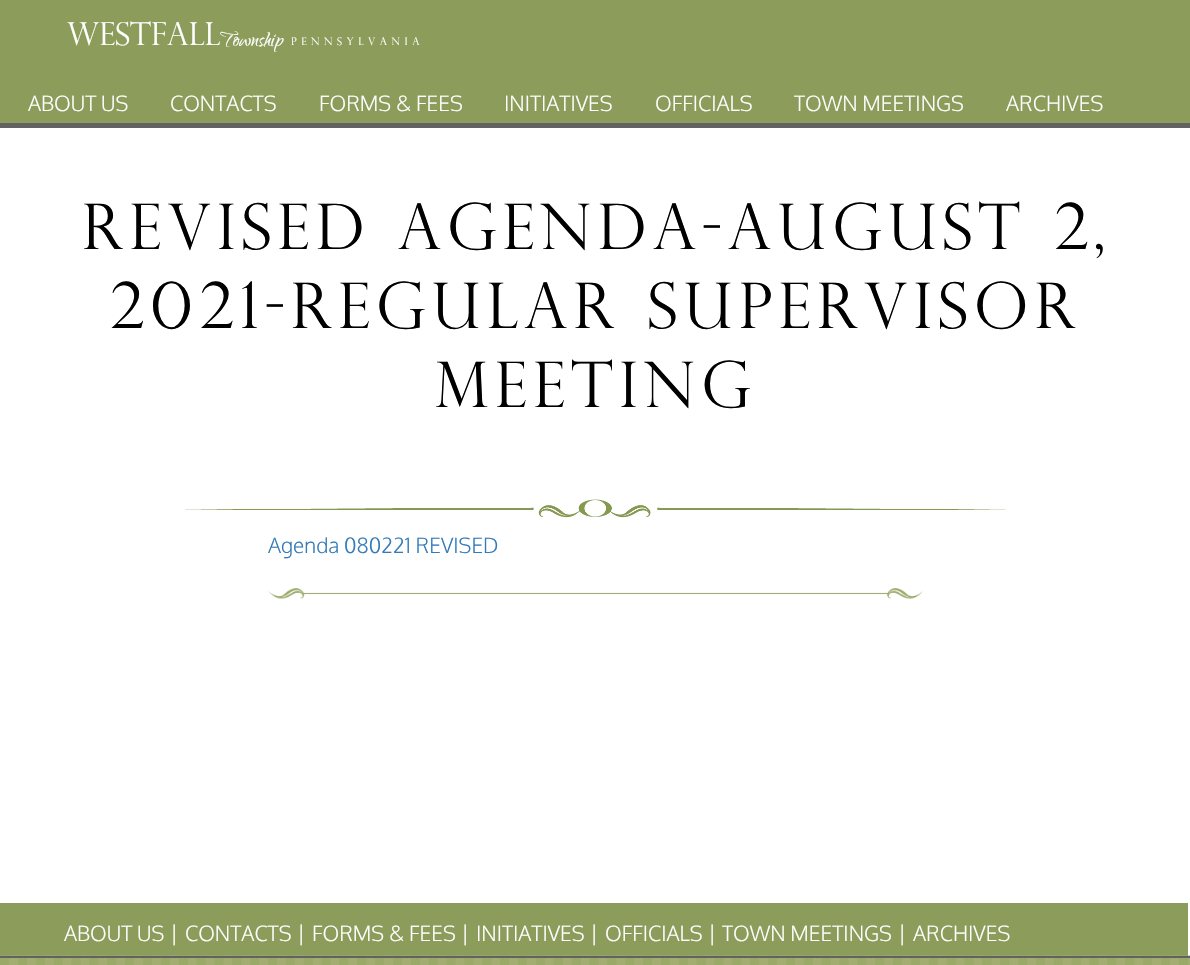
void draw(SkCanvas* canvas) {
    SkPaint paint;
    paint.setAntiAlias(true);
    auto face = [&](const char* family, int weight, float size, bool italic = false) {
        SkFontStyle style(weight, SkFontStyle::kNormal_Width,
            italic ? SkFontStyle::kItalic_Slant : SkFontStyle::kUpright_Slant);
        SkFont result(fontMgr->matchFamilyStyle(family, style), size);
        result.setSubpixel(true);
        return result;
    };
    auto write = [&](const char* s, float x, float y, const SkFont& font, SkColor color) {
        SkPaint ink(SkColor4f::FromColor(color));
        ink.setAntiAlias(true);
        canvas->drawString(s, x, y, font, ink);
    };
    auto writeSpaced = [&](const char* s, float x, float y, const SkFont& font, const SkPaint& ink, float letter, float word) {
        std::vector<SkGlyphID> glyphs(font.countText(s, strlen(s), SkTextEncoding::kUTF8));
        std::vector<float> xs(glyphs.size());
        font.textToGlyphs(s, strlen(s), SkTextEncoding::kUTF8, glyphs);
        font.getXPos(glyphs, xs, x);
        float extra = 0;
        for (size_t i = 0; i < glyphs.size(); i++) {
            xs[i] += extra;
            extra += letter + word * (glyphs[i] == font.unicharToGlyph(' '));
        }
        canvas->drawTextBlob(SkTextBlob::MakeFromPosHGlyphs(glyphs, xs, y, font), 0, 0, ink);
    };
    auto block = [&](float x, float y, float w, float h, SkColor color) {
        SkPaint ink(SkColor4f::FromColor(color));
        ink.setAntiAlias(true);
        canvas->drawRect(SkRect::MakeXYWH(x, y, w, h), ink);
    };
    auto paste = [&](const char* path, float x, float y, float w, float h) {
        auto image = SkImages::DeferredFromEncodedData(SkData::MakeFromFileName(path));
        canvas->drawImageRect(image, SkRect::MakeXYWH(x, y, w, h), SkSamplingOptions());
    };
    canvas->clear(SK_ColorWHITE);
    block(0, 0, 1190, 123, SkColorSetRGB(140, 157, 91));
    block(0, 123, 1190, 5, SkColorSetRGB(99, 98, 99));
    auto kFont1 = face("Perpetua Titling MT", 300, 31.5f);
    write("WESTFALL", 67, 45, kFont1, SK_ColorWHITE);
    auto kFont2 = face("Qwigley", 400, 26);
    write("Township", 220, 45, kFont2, SK_ColorWHITE);
    auto kFont3 = face("Perpetua Titling MT", 300, 10.5f);
    paint.setColor(SK_ColorWHITE);
    writeSpaced("PENNSYLVANIA", 291, 45, kFont3, paint, 4.5f, 0);
    auto kFont4 = face("Oxygen", 300, 21);
    write("ABOUT US", 28, 111, kFont4, SK_ColorWHITE);
    write("CONTACTS", 170, 111, kFont4, SK_ColorWHITE);
    write("FORMS & FEES", 319, 111, kFont4, SK_ColorWHITE);
    write("INITIATIVES", 504, 111, kFont4, SK_ColorWHITE);
    write("OFFICIALS", 655, 111, kFont4, SK_ColorWHITE);
    write("TOWN MEETINGS", 794, 111, kFont4, SK_ColorWHITE);
    write("ARCHIVES", 1006, 111, kFont4, SK_ColorWHITE);
    auto kFont5 = face("Perpetua Titling MT", 300, 63);
    paint.setColor(SK_ColorBLACK);
    writeSpaced("REVISED AGENDA-August 2,", 82, 249, kFont5, paint, 6, 0);
    writeSpaced("2021-Regular Supervisor", 109, 328, kFont5, paint, 6, 0);
    writeSpaced("Meeting", 435, 407, kFont5, paint, 6, 0);
    paste("pic1.png", 185, 499, 821, 19);
    write("Agenda 080221 REVISED", 268, 553, kFont4, SkColorSetRGB(51, 122, 183));
    paste("pic2.png", 268, 588, 655, 11);
    block(0, 903, 1188, 53, SkColorSetRGB(140, 157, 91));
    write("ABOUT US", 64, 941, kFont4, SK_ColorWHITE);
    write("|", 170, 941, kFont4, SK_ColorWHITE);
    write("CONTACTS", 185, 941, kFont4, SK_ColorWHITE);
    write("|", 297, 941, kFont4, SK_ColorWHITE);
    write("FORMS & FEES", 312, 941, kFont4, SK_ColorWHITE);
    write("|", 461, 941, kFont4, SK_ColorWHITE);
    write("INITIATIVES", 476, 941, kFont4, SK_ColorWHITE);
    write("|", 590, 941, kFont4, SK_ColorWHITE);
    write("OFFICIALS", 605, 941, kFont4, SK_ColorWHITE);
    write("|", 708, 941, kFont4, SK_ColorWHITE);
    write("TOWN MEETINGS", 722, 941, kFont4, SK_ColorWHITE);
    write("|", 898, 941, kFont4, SK_ColorWHITE);
    write("ARCHIVES", 913, 941, kFont4, SK_ColorWHITE);
    paste("pic3.png", 0, 955, 1190, 10);
    block(0, 956, 1190, 2, SkColorSetRGB(99, 98, 99));
}
